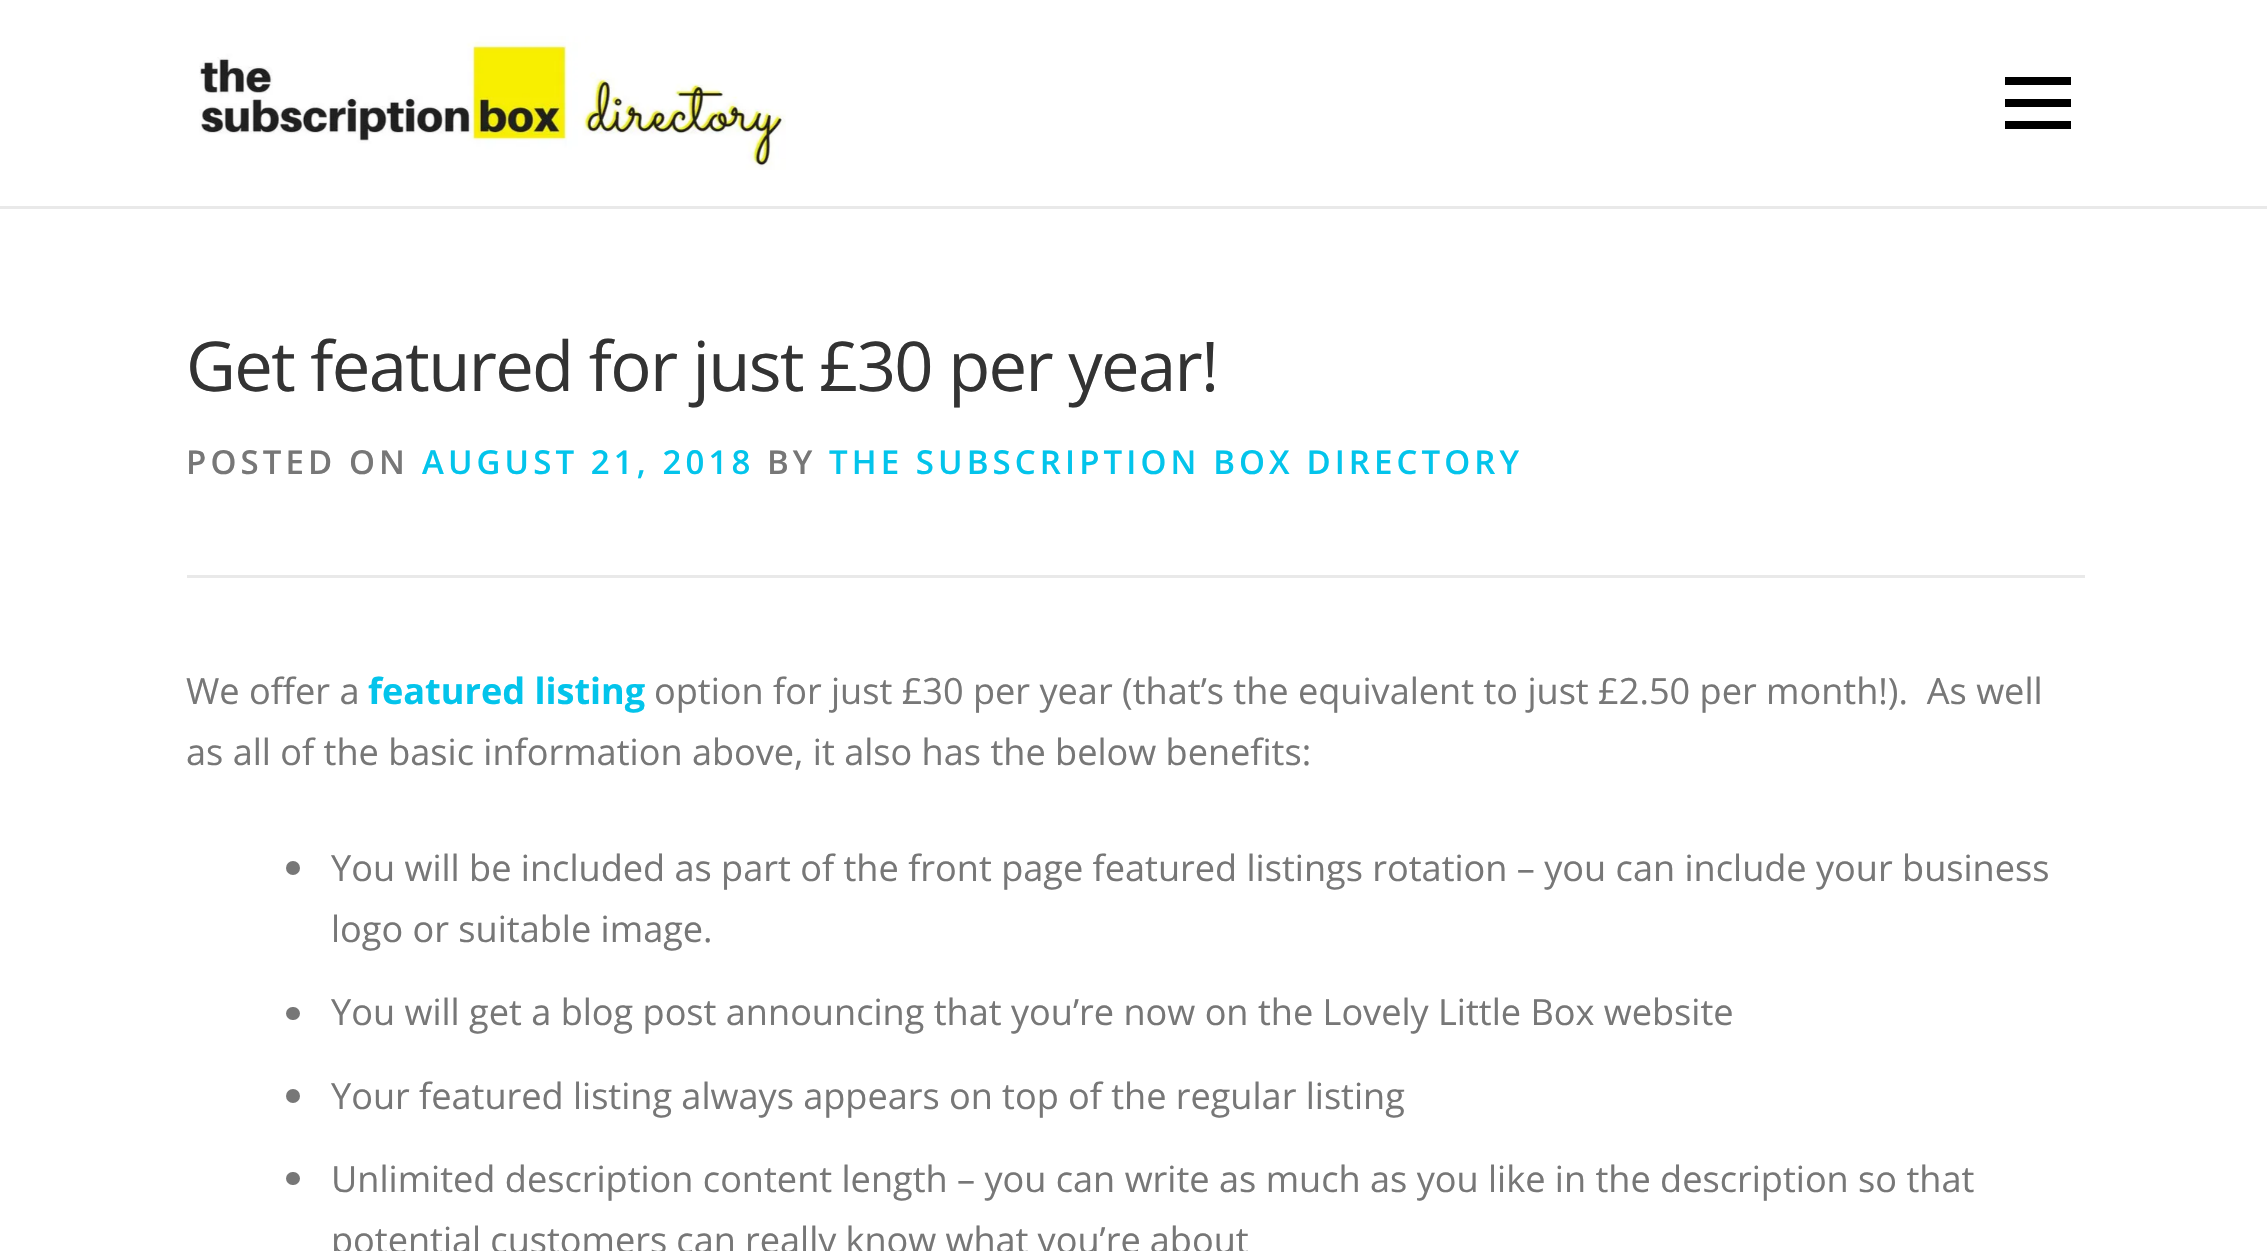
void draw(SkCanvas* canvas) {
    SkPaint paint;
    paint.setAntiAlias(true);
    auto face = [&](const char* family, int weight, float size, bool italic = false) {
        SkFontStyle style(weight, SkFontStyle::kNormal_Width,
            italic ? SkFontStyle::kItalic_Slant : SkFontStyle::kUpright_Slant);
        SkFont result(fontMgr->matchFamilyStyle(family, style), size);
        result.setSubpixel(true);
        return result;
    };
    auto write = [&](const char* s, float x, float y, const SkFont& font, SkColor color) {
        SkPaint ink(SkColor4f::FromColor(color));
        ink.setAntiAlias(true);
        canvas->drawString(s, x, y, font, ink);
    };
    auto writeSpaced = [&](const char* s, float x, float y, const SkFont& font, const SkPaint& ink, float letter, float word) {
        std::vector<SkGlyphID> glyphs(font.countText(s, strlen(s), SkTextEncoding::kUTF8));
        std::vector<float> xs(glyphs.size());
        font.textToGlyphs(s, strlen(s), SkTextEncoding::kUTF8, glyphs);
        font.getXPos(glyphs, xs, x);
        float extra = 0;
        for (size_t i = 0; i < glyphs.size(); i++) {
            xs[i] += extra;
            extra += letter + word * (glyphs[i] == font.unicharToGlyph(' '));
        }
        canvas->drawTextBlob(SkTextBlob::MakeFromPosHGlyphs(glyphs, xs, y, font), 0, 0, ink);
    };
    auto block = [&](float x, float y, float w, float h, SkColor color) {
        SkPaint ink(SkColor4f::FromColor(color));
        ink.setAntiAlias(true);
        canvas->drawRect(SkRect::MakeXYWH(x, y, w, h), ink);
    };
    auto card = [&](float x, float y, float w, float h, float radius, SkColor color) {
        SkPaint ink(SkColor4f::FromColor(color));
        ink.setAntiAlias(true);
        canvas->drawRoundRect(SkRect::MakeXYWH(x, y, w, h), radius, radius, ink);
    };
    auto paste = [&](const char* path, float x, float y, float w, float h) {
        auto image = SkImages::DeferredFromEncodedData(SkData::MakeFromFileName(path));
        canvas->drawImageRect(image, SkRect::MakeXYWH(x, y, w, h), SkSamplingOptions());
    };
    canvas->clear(SK_ColorWHITE);
    paste("pic1.png", 199, 36, 587, 134);
    block(2005, 99, 66, 8, SK_ColorBLACK);
    block(2005, 77, 66, 8, SK_ColorBLACK);
    block(2005, 121, 66, 8, SK_ColorBLACK);
    block(0, 206, 2267, 3, SkColorSetRGB(233, 233, 233));
    auto kFont1 = face("Open Sans", 400, 68.75f);
    paint.setColor(SkColorSetRGB(51, 51, 51));
    writeSpaced("Get featured for just £30 per year!", 186, 391, kFont1, paint, -1.65f, 0);
    block(187, 575, 1898, 3, SkColorSetRGB(233, 233, 233));
    auto kFont2 = face("Open Sans", 600, 33);
    paint.setColor(SkColorSetRGB(119, 119, 119));
    writeSpaced("POSTED ON", 186, 474, kFont2, paint, 4.1f, 0);
    paint.setColor(SkColorSetRGB(3, 196, 235));
    writeSpaced("AUGUST 21, 2018", 422, 474, kFont2, paint, 4.1f, 0);
    paint.setColor(SkColorSetRGB(119, 119, 119));
    writeSpaced("BY", 767, 474, kFont2, paint, 4.1f, 0);
    paint.setColor(SkColorSetRGB(3, 196, 235));
    writeSpaced("THE SUBSCRIPTION BOX DIRECTORY", 829, 474, kFont2, paint, 4.1f, 0);
    auto kFont3 = face("Open Sans", 400, 36.1f);
    write("We offer a", 186, 704, kFont3, SkColorSetRGB(119, 119, 119));
    auto kFont4 = face("Open Sans", 700, 36.1f);
    write("featured listing", 368, 704, kFont4, SkColorSetRGB(3, 196, 235));
    write("option for just £30 per year (that’s the equivalent to just £2.50 per month!).  As well", 654, 704, kFont3, SkColorSetRGB(119, 119, 119));
    write("as all of the basic information above, it also has the below benefits:", 186, 765, kFont3, SkColorSetRGB(119, 119, 119));
    paint.setColor(SkColorSetRGB(119, 119, 119));
    canvas->drawCircle(293, 868, 7, paint);
    write("You will be included as part of the front page featured listings rotation – you can include your business", 331, 881, kFont3, SkColorSetRGB(119, 119, 119));
    write("logo or suitable image.", 331, 942, kFont3, SkColorSetRGB(119, 119, 119));
    card(286, 1007, 14, 13, 6.5f, SkColorSetRGB(119, 119, 119));
    write("You will get a blog post announcing that you’re now on the Lovely Little Box website", 331, 1025, kFont3, SkColorSetRGB(119, 119, 119));
    canvas->drawCircle(293, 1096, 7, paint);
    writeSpaced("Your featured listing always appears on top of the regular listing", 331, 1109, kFont3, paint, 0, -0.1f);
    card(286, 1172, 14, 13, 6.5f, SkColorSetRGB(119, 119, 119));
    write("Unlimited description content length – you can write as much as you like in the description so that", 331, 1192, kFont3, SkColorSetRGB(119, 119, 119));
    writeSpaced("potential customers can really know what you’re about", 331, 1253, kFont3, paint, 0, -0.25f);
}
